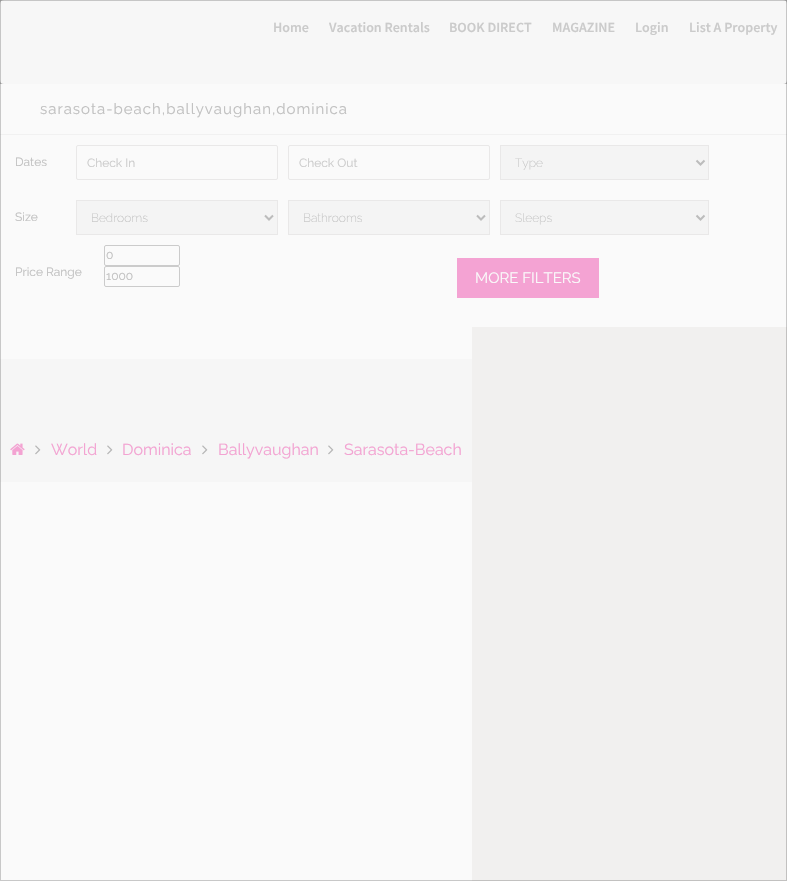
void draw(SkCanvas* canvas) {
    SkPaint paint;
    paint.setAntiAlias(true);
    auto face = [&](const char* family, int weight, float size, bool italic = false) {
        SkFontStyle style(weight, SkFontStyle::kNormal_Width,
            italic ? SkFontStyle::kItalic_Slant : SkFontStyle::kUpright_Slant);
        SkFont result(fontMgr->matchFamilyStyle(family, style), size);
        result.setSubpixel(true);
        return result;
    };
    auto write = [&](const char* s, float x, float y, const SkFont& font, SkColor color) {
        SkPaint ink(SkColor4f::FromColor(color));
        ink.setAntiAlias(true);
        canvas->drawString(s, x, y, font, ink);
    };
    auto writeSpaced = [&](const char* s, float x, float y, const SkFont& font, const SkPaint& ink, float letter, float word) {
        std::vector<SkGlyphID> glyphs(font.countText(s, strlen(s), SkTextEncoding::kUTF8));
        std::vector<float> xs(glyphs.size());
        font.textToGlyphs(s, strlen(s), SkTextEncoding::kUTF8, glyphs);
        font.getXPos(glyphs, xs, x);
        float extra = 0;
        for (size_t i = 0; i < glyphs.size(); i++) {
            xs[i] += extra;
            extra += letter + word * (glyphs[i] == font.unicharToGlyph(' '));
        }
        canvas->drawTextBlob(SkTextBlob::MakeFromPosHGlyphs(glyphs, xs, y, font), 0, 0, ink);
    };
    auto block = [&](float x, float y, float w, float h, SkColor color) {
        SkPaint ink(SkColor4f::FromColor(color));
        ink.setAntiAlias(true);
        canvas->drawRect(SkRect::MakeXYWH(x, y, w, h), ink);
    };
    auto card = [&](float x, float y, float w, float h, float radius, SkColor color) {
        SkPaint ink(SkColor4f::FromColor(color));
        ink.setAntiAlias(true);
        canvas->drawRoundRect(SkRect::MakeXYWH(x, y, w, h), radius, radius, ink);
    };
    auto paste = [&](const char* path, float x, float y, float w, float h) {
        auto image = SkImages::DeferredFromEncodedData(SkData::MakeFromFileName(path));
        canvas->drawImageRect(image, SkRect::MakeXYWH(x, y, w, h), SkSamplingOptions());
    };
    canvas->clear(SkColorSetRGB(250, 250, 250));
    block(0, 0, 787, 84, SkColorSetRGB(175, 175, 175));
    card(0, 0, 787, 84, 4, SkColorSetRGB(247, 247, 247));
    auto kFont1 = face("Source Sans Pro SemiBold", 600, 14);
    write("Home", 273, 32, kFont1, SkColorSetRGB(203, 203, 203));
    write("Vacation Rentals", 329, 32, kFont1, SkColorSetRGB(203, 203, 203));
    write("BOOK DIRECT", 449, 32, kFont1, SkColorSetRGB(203, 203, 203));
    write("MAGAZINE", 552, 32, kFont1, SkColorSetRGB(203, 203, 203));
    write("Login", 635, 32, kFont1, SkColorSetRGB(203, 203, 203));
    write("List A Property", 689, 32, kFont1, SkColorSetRGB(203, 203, 203));
    block(0, 134, 787, 1, SkColorSetRGB(241, 241, 241));
    auto kFont2 = face("Raleway", 400, 15);
    paint.setColor(SkColorSetRGB(192, 192, 192));
    writeSpaced("sarasota-beach,ballyvaughan,dominica", 40, 114, kFont2, paint, 1, 0);
    auto kFont3 = face("Raleway", 400, 12);
    write("Dates", 15, 166, kFont3, SkColorSetRGB(192, 192, 192));
    paint.setStyle(SkPaint::kStroke_Style);
    paint.setStrokeWidth(1);
    paint.setColor(SkColorSetRGB(233, 232, 232));
    canvas->drawRoundRect(SkRect::MakeXYWH(76.5f, 145.5f, 201, 34), 1.5f, 1.5f, paint);
    write("Check In", 87, 167, kFont3, SkColorSetRGB(203, 203, 203));
    canvas->drawRoundRect(SkRect::MakeXYWH(288.5f, 145.5f, 201, 34), 1.5f, 1.5f, paint);
    write("Check Out", 299, 167, kFont3, SkColorSetRGB(203, 203, 203));
    paint.setStyle(SkPaint::kFill_Style);
    paint.setColor(SkColorSetRGB(244, 244, 244));
    canvas->drawRect(SkRect::MakeXYWH(500.5f, 145.5f, 208, 34), paint);
    paint.setStyle(SkPaint::kStroke_Style);
    paint.setColor(SkColorSetRGB(233, 232, 232));
    canvas->drawRect(SkRect::MakeXYWH(500.5f, 145.5f, 208, 34), paint);
    paint.setStrokeWidth(2);
    paint.setColor(SkColorSetRGB(188, 188, 188));
    canvas->drawPath(SkPathBuilder().moveTo(696.5f, 160.5f).lineTo(700.5f, 164.5f).lineTo(704.5f, 160.5f).detach(), paint);
    auto kFont4 = face("Raleway", 200, 12);
    write("Type", 515, 167, kFont4, SkColorSetRGB(192, 192, 192));
    write("Size", 15, 221, kFont3, SkColorSetRGB(192, 192, 192));
    paint.setStyle(SkPaint::kFill_Style);
    paint.setColor(SkColorSetRGB(244, 244, 244));
    canvas->drawRect(SkRect::MakeXYWH(76.5f, 200.5f, 201, 34), paint);
    paint.setStyle(SkPaint::kStroke_Style);
    paint.setStrokeWidth(1);
    paint.setColor(SkColorSetRGB(233, 232, 232));
    canvas->drawRect(SkRect::MakeXYWH(76.5f, 200.5f, 201, 34), paint);
    paint.setStrokeWidth(2);
    paint.setColor(SkColorSetRGB(188, 188, 188));
    canvas->drawPath(SkPathBuilder().moveTo(265, 215.5f).lineTo(269, 219.5f).lineTo(273, 215.5f).detach(), paint);
    write("Bedrooms", 91, 222, kFont4, SkColorSetRGB(192, 192, 192));
    paint.setStyle(SkPaint::kFill_Style);
    paint.setColor(SkColorSetRGB(244, 244, 244));
    canvas->drawRect(SkRect::MakeXYWH(288.5f, 200.5f, 201, 34), paint);
    paint.setStyle(SkPaint::kStroke_Style);
    paint.setStrokeWidth(1);
    paint.setColor(SkColorSetRGB(233, 232, 232));
    canvas->drawRect(SkRect::MakeXYWH(288.5f, 200.5f, 201, 34), paint);
    paint.setStrokeWidth(2);
    paint.setColor(SkColorSetRGB(188, 188, 188));
    canvas->drawPath(SkPathBuilder().moveTo(477, 215.5f).lineTo(481, 219.5f).lineTo(485, 215.5f).detach(), paint);
    write("Bathrooms", 303, 222, kFont4, SkColorSetRGB(192, 192, 192));
    paint.setStyle(SkPaint::kFill_Style);
    paint.setColor(SkColorSetRGB(244, 244, 244));
    canvas->drawRect(SkRect::MakeXYWH(500.5f, 200.5f, 208, 34), paint);
    paint.setStyle(SkPaint::kStroke_Style);
    paint.setStrokeWidth(1);
    paint.setColor(SkColorSetRGB(233, 232, 232));
    canvas->drawRect(SkRect::MakeXYWH(500.5f, 200.5f, 208, 34), paint);
    paint.setStrokeWidth(2);
    paint.setColor(SkColorSetRGB(188, 188, 188));
    canvas->drawPath(SkPathBuilder().moveTo(696.5f, 215.5f).lineTo(700.5f, 219.5f).lineTo(704.5f, 215.5f).detach(), paint);
    write("Sleeps", 515, 222, kFont4, SkColorSetRGB(192, 192, 192));
    write("Price Range", 15, 276, kFont3, SkColorSetRGB(192, 192, 192));
    paint.setStrokeWidth(1);
    paint.setColor(SkColorSetRGB(203, 203, 203));
    canvas->drawRoundRect(SkRect::MakeXYWH(104.5f, 245.5f, 75, 20), 1.5f, 1.5f, paint);
    write("0", 106, 259, kFont3, SkColorSetRGB(192, 192, 192));
    canvas->drawRoundRect(SkRect::MakeXYWH(104.5f, 266.5f, 75, 20), 1.5f, 1.5f, paint);
    write("1000", 106, 280, kFont3, SkColorSetRGB(192, 192, 192));
    block(457, 258, 142, 40, SkColorSetRGB(244, 163, 211));
    write("MORE FILTERS", 475, 283, kFont2, SkColorSetRGB(250, 250, 250));
    block(0, 359, 472, 123, SkColorSetRGB(246, 246, 246));
    paste("pic1.png", 10, 443, 15, 12);
    paste("pic2.png", 35, 445, 6, 10);
    paste("pic2.png", 107, 445, 6, 10);
    paste("pic2.png", 202, 445, 6, 10);
    paste("pic2.png", 328, 445, 6, 10);
    block(472, 327, 315, 554, SkColorSetRGB(241, 240, 239));
    paint.setColor(SkColorSetARGB(87, 103, 103, 103));
    canvas->drawRect(SkRect::MakeXYWH(0.5f, 0.5f, 786, 880), paint);
    auto kFont5 = face("Raleway", 400, 16);
    write("World", 51, 455, kFont5, SkColorSetRGB(243, 163, 210));
    write("Dominica", 122, 455, kFont5, SkColorSetRGB(243, 163, 210));
    write("Ballyvaughan", 218, 455, kFont5, SkColorSetRGB(243, 163, 210));
    write("Sarasota-Beach", 344, 455, kFont5, SkColorSetRGB(243, 163, 210));
}
